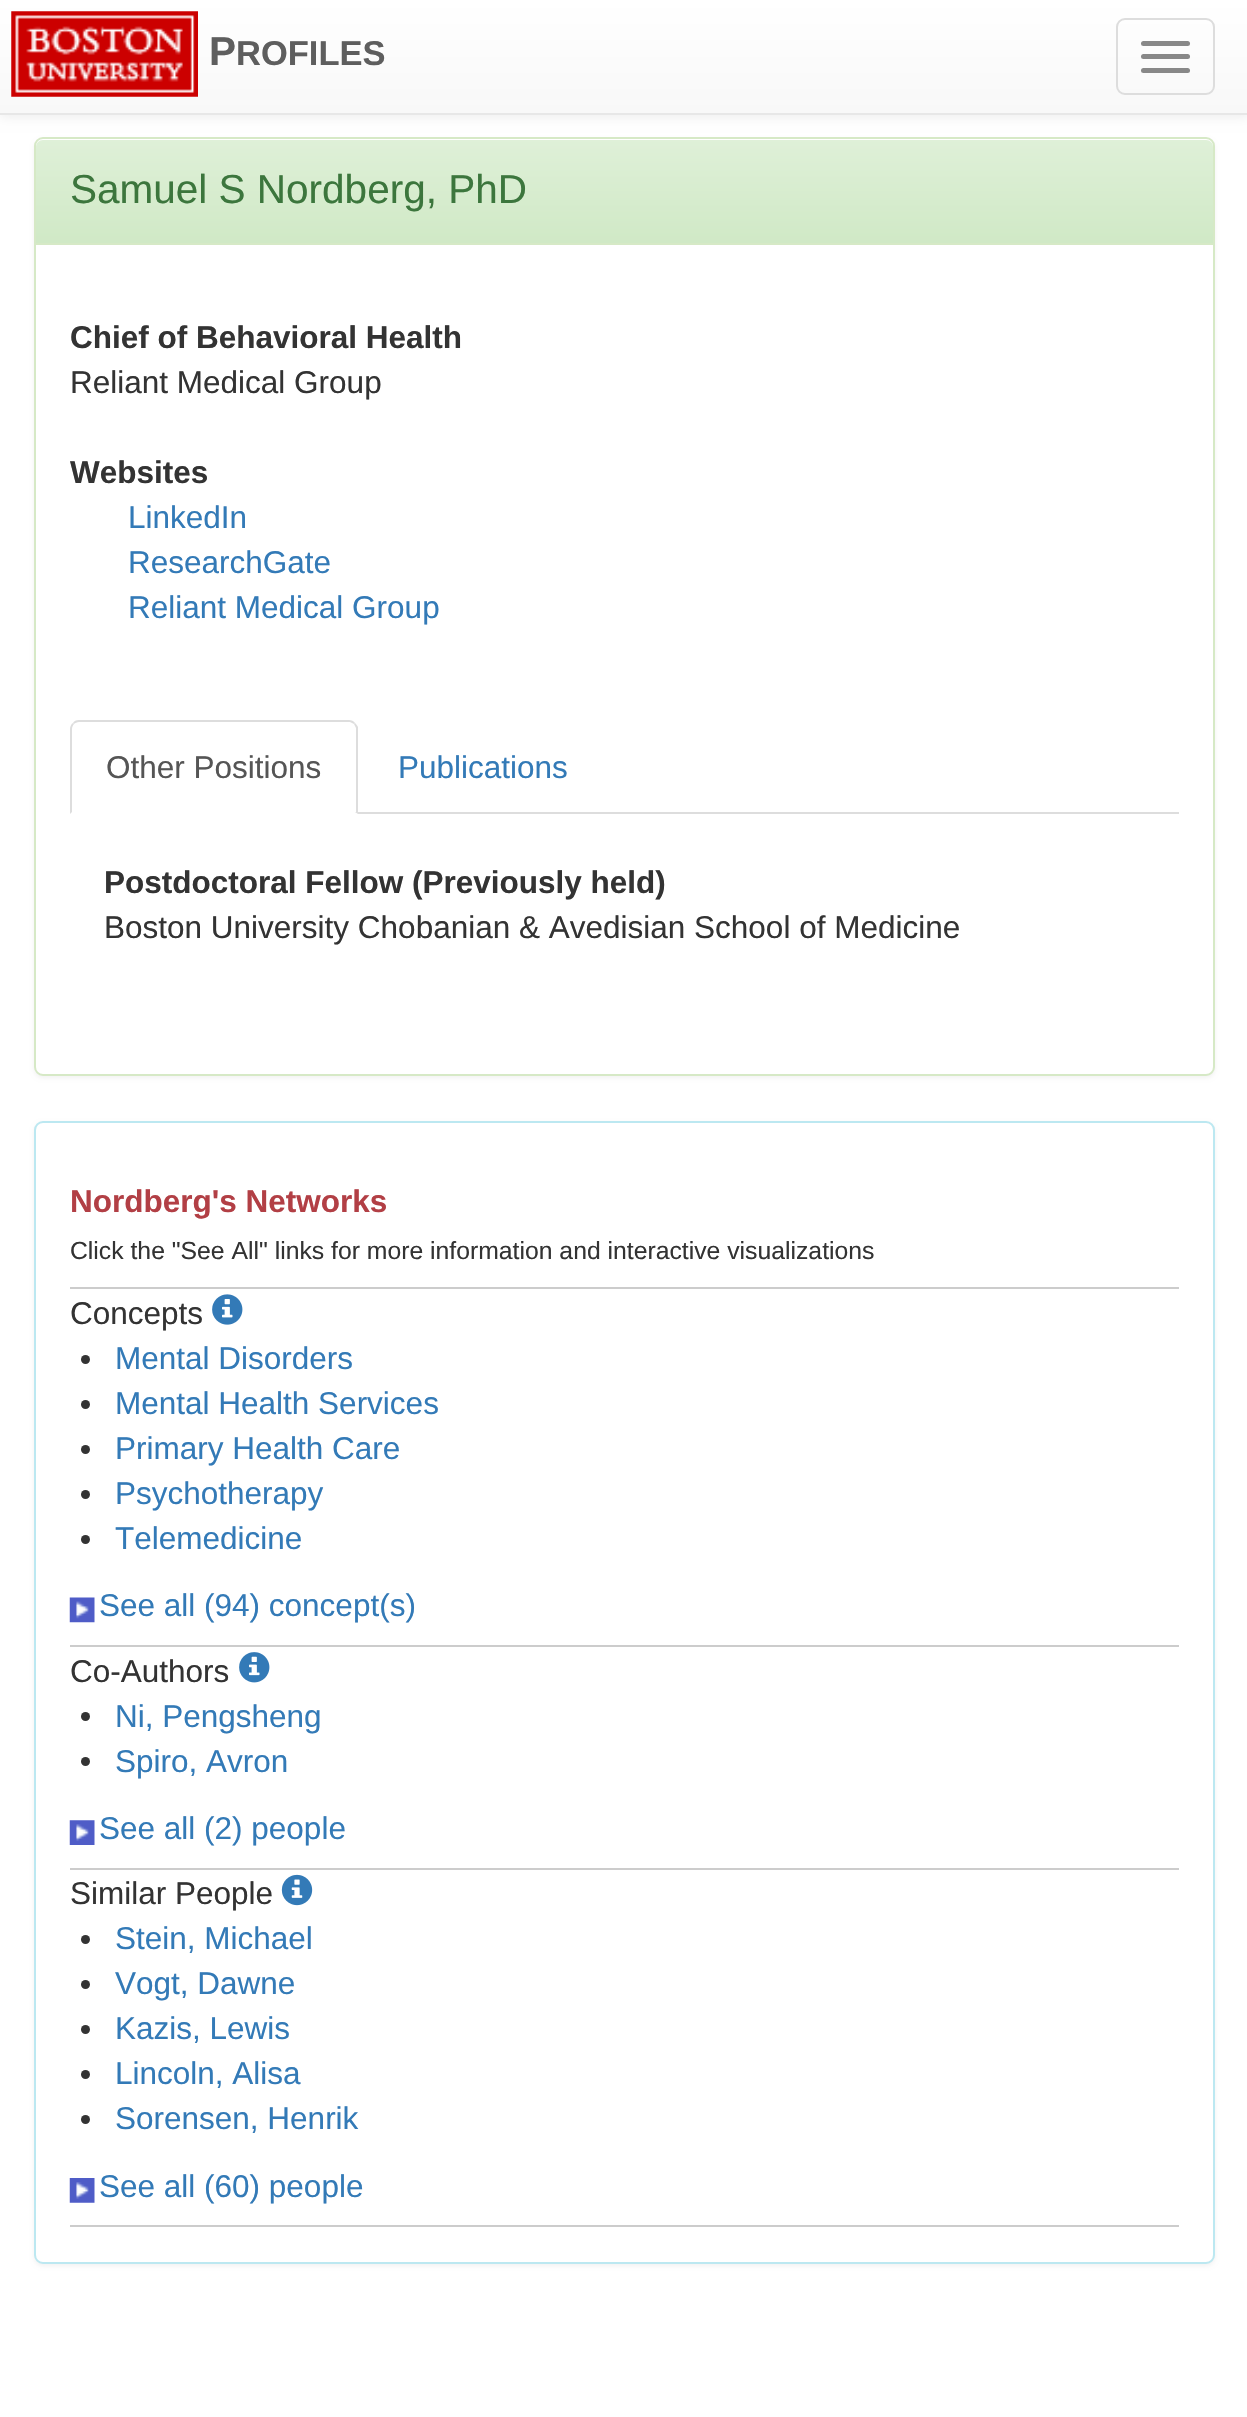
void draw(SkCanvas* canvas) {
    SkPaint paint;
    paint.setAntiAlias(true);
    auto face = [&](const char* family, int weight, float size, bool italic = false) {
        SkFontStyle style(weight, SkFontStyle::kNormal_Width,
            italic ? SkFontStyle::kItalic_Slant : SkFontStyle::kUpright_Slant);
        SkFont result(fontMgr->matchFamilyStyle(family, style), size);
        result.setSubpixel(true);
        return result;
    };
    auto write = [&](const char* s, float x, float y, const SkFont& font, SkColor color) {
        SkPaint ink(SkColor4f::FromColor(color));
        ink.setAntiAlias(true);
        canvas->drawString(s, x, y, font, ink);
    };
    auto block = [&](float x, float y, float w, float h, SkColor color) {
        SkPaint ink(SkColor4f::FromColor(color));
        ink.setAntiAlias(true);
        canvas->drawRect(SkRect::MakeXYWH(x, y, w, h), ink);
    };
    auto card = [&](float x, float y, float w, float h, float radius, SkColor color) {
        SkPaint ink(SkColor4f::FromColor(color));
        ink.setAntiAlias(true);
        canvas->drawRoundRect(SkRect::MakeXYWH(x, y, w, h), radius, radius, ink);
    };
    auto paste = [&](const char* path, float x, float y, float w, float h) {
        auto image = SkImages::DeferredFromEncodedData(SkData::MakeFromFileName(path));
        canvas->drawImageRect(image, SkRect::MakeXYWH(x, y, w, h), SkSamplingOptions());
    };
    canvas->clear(SK_ColorWHITE);
    paint.setColor(SkColorSetARGB(18, 0, 0, 0));
    paint.setMaskFilter(SkMaskFilter::MakeBlur(kNormal_SkBlurStyle, 5.5f));
    canvas->drawRect(SkRect::MakeXYWH(0, 2, 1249, 115), paint);
    paint.setMaskFilter(nullptr);
    {
        const SkColor colors[] = {SK_ColorWHITE, SkColorSetRGB(248, 248, 248)};
        const float stops[] = {0, 1};
        const SkPoint ends[] = {{624, 0}, {624, 113}};
        paint.setShader(SkGradientShader::MakeLinear(ends, colors, stops, 2, SkTileMode::kClamp));
        paint.setAlpha(255);
    }
    canvas->drawRect(SkRect::MakeXYWH(0, 0, 1247, 113), paint);
    block(0, 113, 1247, 2, SkColorSetRGB(231, 231, 231));
    paste("pic1.png", 11, 11, 187, 86);
    auto kFont1 = face("Liberation Sans", 700, 40.5f);
    write("P", 209, 65, kFont1, SkColorSetRGB(94, 94, 94));
    auto kFont2 = face("Liberation Sans", 700, 34.5f);
    write("ROFILES", 236, 65, kFont2, SkColorSetRGB(94, 94, 94));
    paint.setStyle(SkPaint::kStroke_Style);
    paint.setStrokeWidth(2);
    paint.setShader(nullptr);
    paint.setColor(SkColorSetRGB(221, 221, 221));
    canvas->drawRoundRect(SkRect::MakeXYWH(1117, 19, 97, 75), 8, 8, paint);
    card(1141, 41, 49, 5, 2.5f, SkColorSetRGB(136, 136, 136));
    card(1141, 54, 49, 5, 2.5f, SkColorSetRGB(136, 136, 136));
    card(1141, 68, 49, 5, 2.5f, SkColorSetRGB(136, 136, 136));
    paint.setStyle(SkPaint::kFill_Style);
    paint.setColor(SkColorSetARGB(13, 0, 0, 0));
    paint.setMaskFilter(SkMaskFilter::MakeBlur(kNormal_SkBlurStyle, 2));
    canvas->drawRoundRect(SkRect::MakeXYWH(34, 140, 1181, 938), 9, 9, paint);
    paint.setMaskFilter(nullptr);
    paint.setColor(SK_ColorWHITE);
    canvas->drawRoundRect(SkRect::MakeXYWH(35, 138, 1179, 937), 8, 8, paint);
    paint.setStyle(SkPaint::kStroke_Style);
    paint.setColor(SkColorSetRGB(214, 233, 198));
    canvas->drawRoundRect(SkRect::MakeXYWH(35, 138, 1179, 937), 8, 8, paint);
    paint.setStyle(SkPaint::kFill_Style);
    {
        const SkColor colors[] = {SkColorSetRGB(223, 240, 216), SkColorSetRGB(208, 233, 198)};
        const float stops[] = {0, 1};
        const SkPoint ends[] = {{624, 139}, {624, 243}};
        paint.setShader(SkGradientShader::MakeLinear(ends, colors, stops, 2, SkTileMode::kClamp));
        paint.setAlpha(255);
    }
    canvas->drawPath(SkPathBuilder().moveTo(43, 140).lineTo(1206, 140).cubicTo(1210, 140, 1213, 143, 1213, 147).lineTo(1213, 243).lineTo(36, 243).lineTo(36, 147).cubicTo(36, 143, 39, 140, 43, 140).close().detach(), paint);
    block(36, 243, 1177, 2, SkColorSetRGB(214, 233, 198));
    auto kFont3 = face("Liberation Sans", 400, 40.5f);
    write("Samuel S Nordberg, PhD", 70, 203, kFont3, SkColorSetRGB(60, 118, 61));
    auto kFont4 = face("Liberation Sans", 700, 31.5f);
    write("Chief of Behavioral Health", 70, 348, kFont4, SkColorSetRGB(51, 51, 51));
    auto kFont5 = face("Liberation Sans", 400, 31.5f);
    write("Reliant Medical Group", 70, 393, kFont5, SkColorSetRGB(51, 51, 51));
    write("Websites", 70, 483, kFont4, SkColorSetRGB(51, 51, 51));
    write("LinkedIn", 128, 528, kFont5, SkColorSetRGB(51, 122, 183));
    write("ResearchGate", 128, 573, kFont5, SkColorSetRGB(51, 122, 183));
    write("Reliant Medical Group", 128, 618, kFont5, SkColorSetRGB(51, 122, 183));
    block(358, 812, 821, 2, SkColorSetRGB(221, 221, 221));
    paint.setShader(nullptr);
    paint.setColor(SkColorSetRGB(221, 221, 221));
    canvas->drawPath(SkPathBuilder().moveTo(79, 720).cubicTo(76, 720, 74, 721, 73, 723).lineTo(74, 724).cubicTo(75, 723, 77, 722, 79, 722).lineTo(350, 722).lineTo(354, 724).lineTo(355, 723).cubicTo(354, 721, 351, 720, 349, 720).close().detach(), paint);
    canvas->drawPath(SkPathBuilder().moveTo(358, 814).lineTo(355, 812).lineTo(356, 812).lineTo(356, 728).lineTo(354, 724).lineTo(355, 723).cubicTo(356, 724, 357, 725, 358, 727).close().detach(), paint);
    canvas->drawPath(SkPathBuilder().moveTo(73, 723).cubicTo(71, 724, 70, 727, 70, 729).lineTo(70, 814).lineTo(72, 812).lineTo(72, 729).cubicTo(72, 727, 73, 725, 74, 724).close().detach(), paint);
    write("Other Positions", 106, 778, kFont5, SkColorSetRGB(85, 85, 85));
    write("Publications", 398, 778, kFont5, SkColorSetRGB(51, 122, 183));
    write("Postdoctoral Fellow (Previously held)", 104, 893, kFont4, SkColorSetRGB(51, 51, 51));
    write("Boston University Chobanian & Avedisian School of Medicine", 104, 938, kFont5, SkColorSetRGB(51, 51, 51));
    paint.setColor(SkColorSetARGB(13, 0, 0, 0));
    paint.setMaskFilter(SkMaskFilter::MakeBlur(kNormal_SkBlurStyle, 2));
    canvas->drawRoundRect(SkRect::MakeXYWH(34, 1123, 1181, 1143), 9, 9, paint);
    paint.setMaskFilter(nullptr);
    paint.setColor(SK_ColorWHITE);
    canvas->drawRoundRect(SkRect::MakeXYWH(35, 1122, 1179, 1141), 8, 8, paint);
    paint.setStyle(SkPaint::kStroke_Style);
    paint.setColor(SkColorSetRGB(188, 232, 241));
    canvas->drawRoundRect(SkRect::MakeXYWH(35, 1122, 1179, 1141), 8, 8, paint);
    write("Nordberg's Networks", 70, 1212, kFont4, SkColorSetRGB(178, 63, 69));
    auto kFont6 = face("Liberation Sans", 400, 24.75f);
    write("Click the \"See All\" links for more information and interactive visualizations", 70, 1259, kFont6, SkColorSetRGB(51, 51, 51));
    block(70, 1287, 1109, 2, SkColorSetRGB(204, 204, 204));
    write("Concepts", 70, 1324, kFont5, SkColorSetRGB(51, 51, 51));
    paste("pic2.png", 212, 1294, 31, 31);
    paint.setStyle(SkPaint::kFill_Style);
    paint.setColor(SkColorSetRGB(51, 51, 51));
    canvas->drawCircle(85.5f, 1359.5f, 4.5f, paint);
    write("Mental Disorders", 115, 1369, kFont5, SkColorSetRGB(51, 122, 183));
    canvas->drawCircle(85.5f, 1404.5f, 4.5f, paint);
    write("Mental Health Services", 115, 1414, kFont5, SkColorSetRGB(51, 122, 183));
    canvas->drawCircle(85.5f, 1449.5f, 4.5f, paint);
    write("Primary Health Care", 115, 1459, kFont5, SkColorSetRGB(51, 122, 183));
    canvas->drawCircle(85.5f, 1494.5f, 4.5f, paint);
    write("Psychotherapy", 115, 1504, kFont5, SkColorSetRGB(51, 122, 183));
    canvas->drawCircle(85.5f, 1539.5f, 4.5f, paint);
    write("Telemedicine", 115, 1549, kFont5, SkColorSetRGB(51, 122, 183));
    paste("pic3.png", 69, 1597, 26, 26);
    write("See all (94) concept(s)", 99, 1616, kFont5, SkColorSetRGB(51, 122, 183));
    block(70, 1645, 1109, 2, SkColorSetRGB(204, 204, 204));
    write("Co-Authors", 70, 1682, kFont5, SkColorSetRGB(51, 51, 51));
    paste("pic4.png", 239, 1652, 31, 31);
    canvas->drawCircle(85.5f, 1716.5f, 4.5f, paint);
    write("Ni, Pengsheng", 115, 1727, kFont5, SkColorSetRGB(51, 122, 183));
    canvas->drawCircle(85.5f, 1761.5f, 4.5f, paint);
    write("Spiro, Avron", 115, 1772, kFont5, SkColorSetRGB(51, 122, 183));
    paste("pic5.png", 69, 1820, 26, 25);
    write("See all (2) people", 99, 1839, kFont5, SkColorSetRGB(51, 122, 183));
    block(70, 1868, 1109, 2, SkColorSetRGB(204, 204, 204));
    write("Similar People", 70, 1904, kFont5, SkColorSetRGB(51, 51, 51));
    paste("pic6.png", 281, 1874, 32, 32);
    canvas->drawCircle(85.5f, 1939.5f, 4.5f, paint);
    write("Stein, Michael", 115, 1949, kFont5, SkColorSetRGB(51, 122, 183));
    canvas->drawCircle(85.5f, 1984.5f, 4.5f, paint);
    write("Vogt, Dawne", 115, 1994, kFont5, SkColorSetRGB(51, 122, 183));
    canvas->drawCircle(85.5f, 2029.5f, 4.5f, paint);
    write("Kazis, Lewis", 115, 2039, kFont5, SkColorSetRGB(51, 122, 183));
    canvas->drawCircle(85.5f, 2074.5f, 4.5f, paint);
    write("Lincoln, Alisa", 115, 2084, kFont5, SkColorSetRGB(51, 122, 183));
    canvas->drawCircle(85.5f, 2119.5f, 4.5f, paint);
    write("Sorensen, Henrik", 115, 2129, kFont5, SkColorSetRGB(51, 122, 183));
    paste("pic7.png", 69, 2178, 26, 25);
    write("See all (60) people", 99, 2197, kFont5, SkColorSetRGB(51, 122, 183));
    block(70, 2225, 1109, 2, SkColorSetRGB(204, 204, 204));
}
